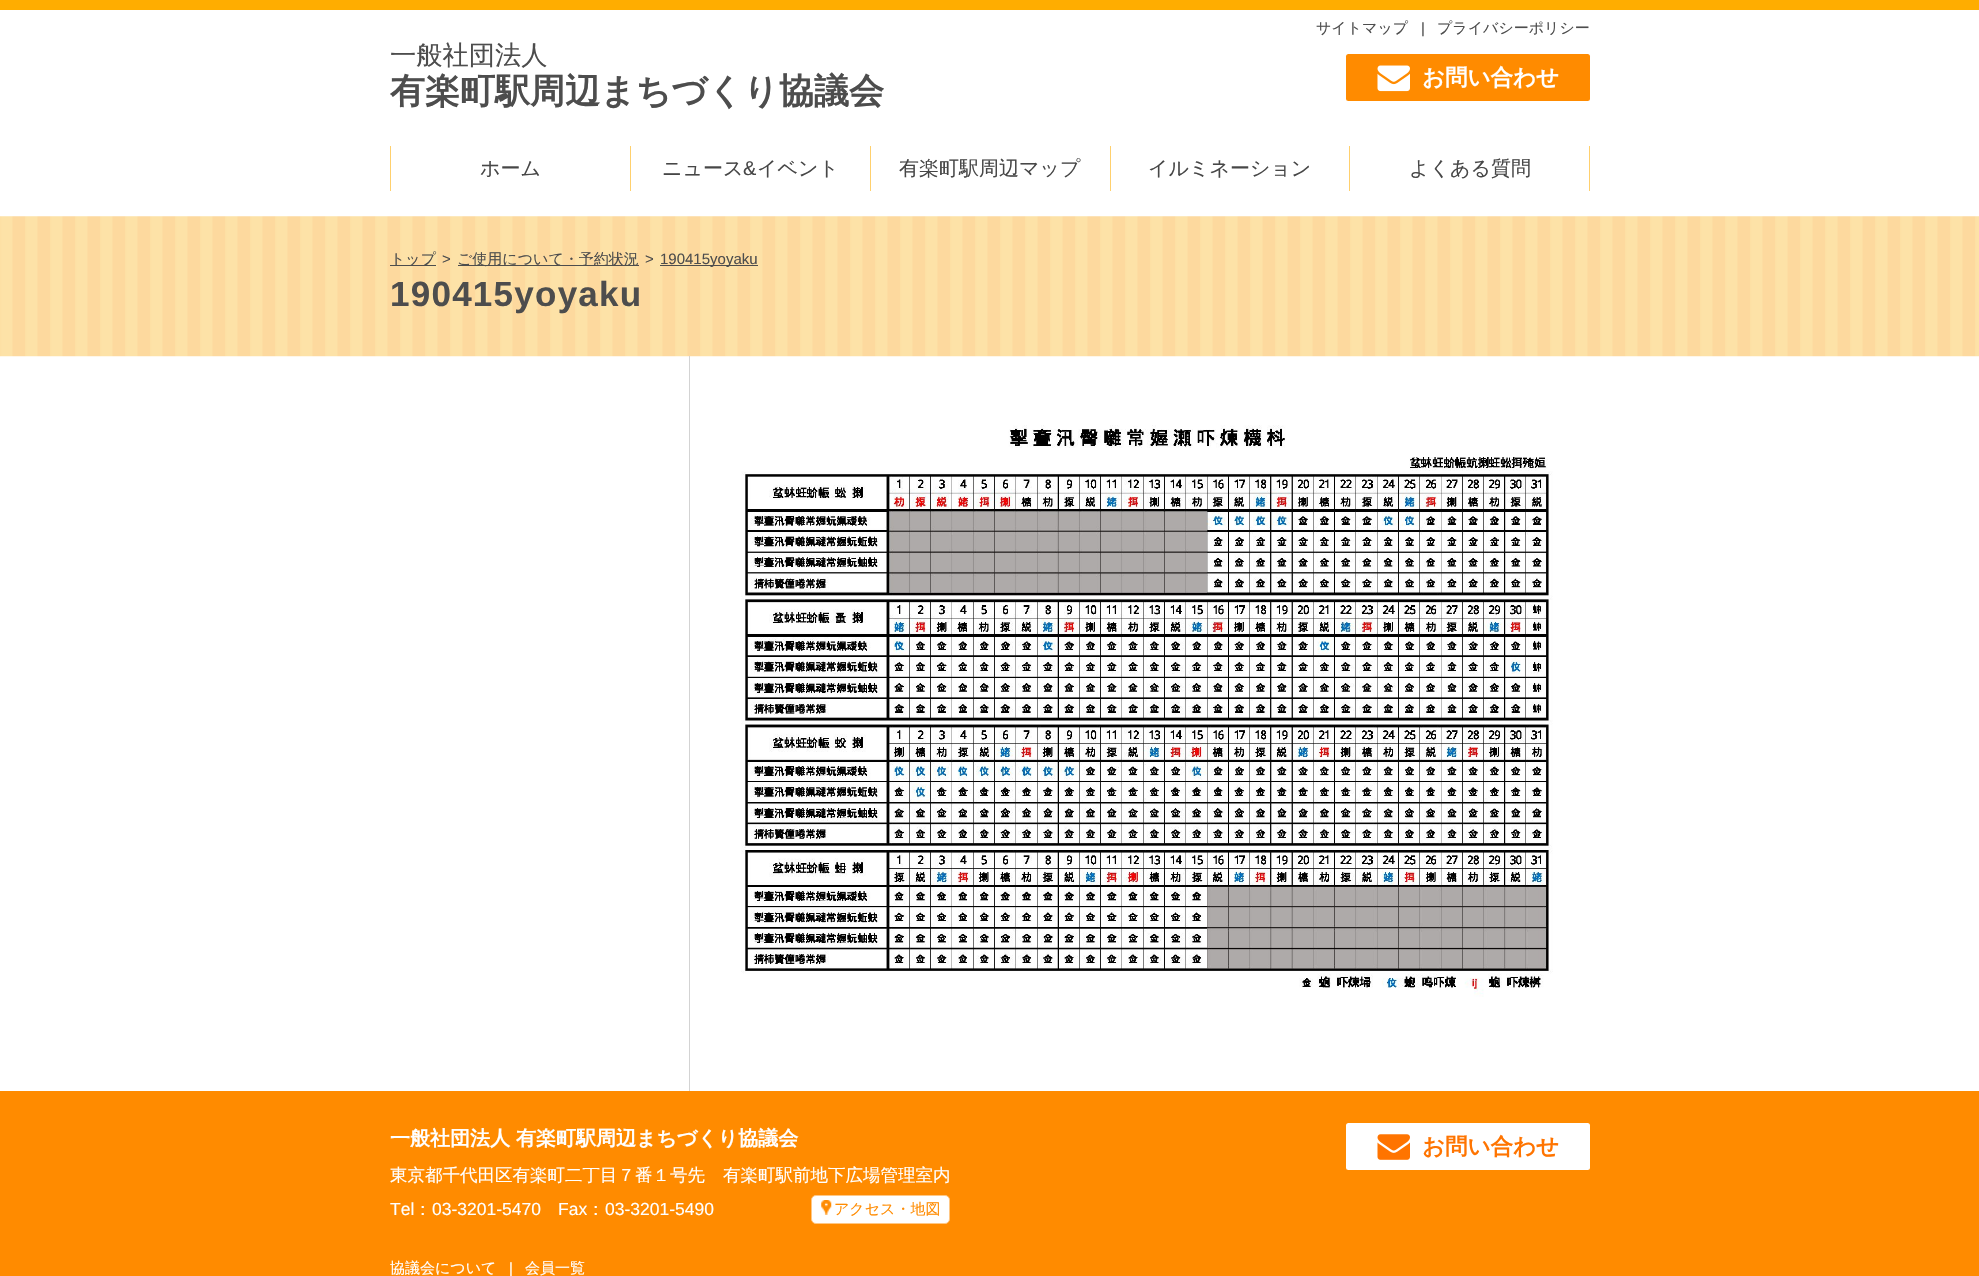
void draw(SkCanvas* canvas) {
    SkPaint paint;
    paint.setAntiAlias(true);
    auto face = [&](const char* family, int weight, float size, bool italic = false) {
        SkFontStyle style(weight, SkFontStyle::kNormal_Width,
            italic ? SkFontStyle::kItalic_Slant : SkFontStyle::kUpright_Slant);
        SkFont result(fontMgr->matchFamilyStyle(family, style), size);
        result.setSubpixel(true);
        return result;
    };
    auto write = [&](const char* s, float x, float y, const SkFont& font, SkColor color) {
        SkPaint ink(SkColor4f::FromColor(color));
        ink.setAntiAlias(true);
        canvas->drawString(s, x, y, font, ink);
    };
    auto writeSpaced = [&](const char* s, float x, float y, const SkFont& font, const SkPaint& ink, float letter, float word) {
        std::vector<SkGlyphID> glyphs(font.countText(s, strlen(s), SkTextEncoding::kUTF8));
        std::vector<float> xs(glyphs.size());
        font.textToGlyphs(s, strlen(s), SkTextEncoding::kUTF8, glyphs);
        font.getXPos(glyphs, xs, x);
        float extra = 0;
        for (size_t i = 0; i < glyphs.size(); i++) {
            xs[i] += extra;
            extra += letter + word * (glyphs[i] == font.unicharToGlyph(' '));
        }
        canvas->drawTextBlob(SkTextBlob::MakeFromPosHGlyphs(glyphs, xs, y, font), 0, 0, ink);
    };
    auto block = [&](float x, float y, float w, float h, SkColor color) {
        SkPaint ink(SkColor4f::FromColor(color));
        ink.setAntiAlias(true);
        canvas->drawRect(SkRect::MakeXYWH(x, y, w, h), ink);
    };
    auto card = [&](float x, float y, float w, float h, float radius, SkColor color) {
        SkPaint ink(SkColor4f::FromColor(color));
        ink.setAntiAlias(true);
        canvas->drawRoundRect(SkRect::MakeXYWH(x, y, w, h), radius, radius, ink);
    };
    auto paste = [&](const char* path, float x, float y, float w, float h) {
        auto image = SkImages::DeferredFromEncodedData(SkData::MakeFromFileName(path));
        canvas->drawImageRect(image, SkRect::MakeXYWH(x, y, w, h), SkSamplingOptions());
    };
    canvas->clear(SK_ColorWHITE);
    block(0, 0, 1979, 10, SkColorSetRGB(255, 173, 0));
    auto kFont1 = face("WenQuanYi Zen Hei", 500, 15);
    write("サイトマップ", 1316, 33, kFont1, SkColorSetRGB(77, 77, 77));
    auto kFont2 = face("Liberation Sans", 400, 15);
    write("|", 1421, 33, kFont2, SkColorSetRGB(77, 77, 77));
    write("プライバシーポリシー", 1437, 33, kFont1, SkColorSetRGB(77, 77, 77));
    auto kFont3 = face("WenQuanYi Zen Hei", 500, 26.25f);
    write("一般社団法人", 390, 64, kFont3, SkColorSetRGB(77, 77, 77));
    auto kFont4 = face("WenQuanYi Zen Hei", 700, 35);
    write("有楽町駅周辺まちづくり協議会", 390, 103, kFont4, SkColorSetRGB(77, 77, 77));
    card(1346, 54, 244, 47, 2.5f, SkColorSetRGB(255, 139, 0));
    paste("pic1.png", 1377, 65, 33, 27);
    auto kFont5 = face("WenQuanYi Zen Hei", 700, 22.5f);
    write("お問い合わせ", 1422, 85, kFont5, SK_ColorWHITE);
    block(390, 146, 1, 45, SkColorSetRGB(255, 208, 109));
    auto kFont6 = face("WenQuanYi Zen Hei", 500, 20);
    write("ホーム", 480, 175, kFont6, SkColorSetRGB(71, 71, 71));
    block(630, 146, 1, 45, SkColorSetRGB(255, 208, 109));
    write("ニュース", 662, 175, kFont6, SkColorSetRGB(71, 71, 71));
    auto kFont7 = face("Liberation Sans", 400, 20);
    write("&", 743, 175, kFont7, SkColorSetRGB(71, 71, 71));
    write("イベント", 757, 175, kFont6, SkColorSetRGB(71, 71, 71));
    block(870, 146, 1, 45, SkColorSetRGB(255, 208, 109));
    write("有楽町駅周辺マップ", 899, 175, kFont6, SkColorSetRGB(71, 71, 71));
    block(1110, 146, 1, 45, SkColorSetRGB(255, 208, 109));
    write("イルミネーション", 1148, 175, kFont6, SkColorSetRGB(71, 71, 71));
    block(1589, 146, 1, 45, SkColorSetRGB(255, 208, 109));
    block(1349, 146, 1, 45, SkColorSetRGB(255, 208, 109));
    write("よくある質問", 1409, 175, kFont6, SkColorSetRGB(71, 71, 71));
    paste("pic2.png", 0, 216, 1979, 141);
    block(390, 265, 46, 1, SkColorSetRGB(77, 77, 77));
    write("トップ", 390, 264, kFont1, SkColorSetRGB(77, 77, 77));
    write(">", 442, 264, kFont2, SkColorSetRGB(77, 77, 77));
    block(458, 265, 181, 1, SkColorSetRGB(77, 77, 77));
    write("ご使用について・予約状況", 457, 264, kFont1, SkColorSetRGB(77, 77, 77));
    write(">", 645, 264, kFont2, SkColorSetRGB(77, 77, 77));
    block(660, 265, 98, 1, SkColorSetRGB(77, 77, 77));
    write("190415yoyaku", 660, 264, kFont2, SkColorSetRGB(77, 77, 77));
    auto kFont8 = face("Liberation Sans", 700, 35);
    paint.setColor(SkColorSetRGB(77, 77, 77));
    writeSpaced("190415yoyaku", 390, 306, kFont8, paint, 1.25f, 0);
    block(689, 356, 1, 735, SkColorSetRGB(211, 211, 211));
    paste("pic3.png", 741, 425, 812, 572);
    block(0, 1091, 1979, 185, SkColorSetRGB(255, 139, 0));
    auto kFont9 = face("WenQuanYi Zen Hei", 700, 20);
    write("一般社団法人 有楽町駅周辺まちづくり協議会", 390, 1145, kFont9, SK_ColorWHITE);
    auto kFont10 = face("WenQuanYi Zen Hei", 500, 17.5f);
    write("東京都千代田区有楽町二丁目７番１号先", 390, 1181, kFont10, SK_ColorWHITE);
    write("有楽町駅前地下広場管理室内", 723, 1181, kFont10, SK_ColorWHITE);
    auto kFont11 = face("Liberation Sans", 400, 17.5f);
    write("Tel", 390, 1215, kFont11, SK_ColorWHITE);
    write("：", 414, 1215, kFont10, SK_ColorWHITE);
    write("03-3201-5470", 432, 1215, kFont11, SK_ColorWHITE);
    write("Fax", 558, 1215, kFont11, SK_ColorWHITE);
    write("：", 587, 1215, kFont10, SK_ColorWHITE);
    write("03-3201-5490", 605, 1215, kFont11, SK_ColorWHITE);
    paint.setColor(SK_ColorWHITE);
    canvas->drawRoundRect(SkRect::MakeXYWH(811.5f, 1195.5f, 138, 28), 4.5f, 4.5f, paint);
    paint.setStyle(SkPaint::kStroke_Style);
    paint.setStrokeWidth(1);
    paint.setColor(SkColorSetRGB(255, 199, 132));
    canvas->drawRoundRect(SkRect::MakeXYWH(811.5f, 1195.5f, 138, 28), 4.5f, 4.5f, paint);
    paste("pic4.png", 821, 1200, 11, 15);
    write("アクセス・地図", 834, 1214, kFont1, SkColorSetRGB(255, 139, 0));
    card(1346, 1123, 244, 47, 2.5f, SK_ColorWHITE);
    paste("pic5.png", 1377, 1134, 33, 26);
    write("お問い合わせ", 1422, 1154, kFont5, SkColorSetRGB(255, 116, 0));
    write("協議会について", 390, 1273, kFont1, SK_ColorWHITE);
    write("|", 509, 1273, kFont2, SK_ColorWHITE);
    write("会員一覧", 525, 1273, kFont1, SK_ColorWHITE);
}
